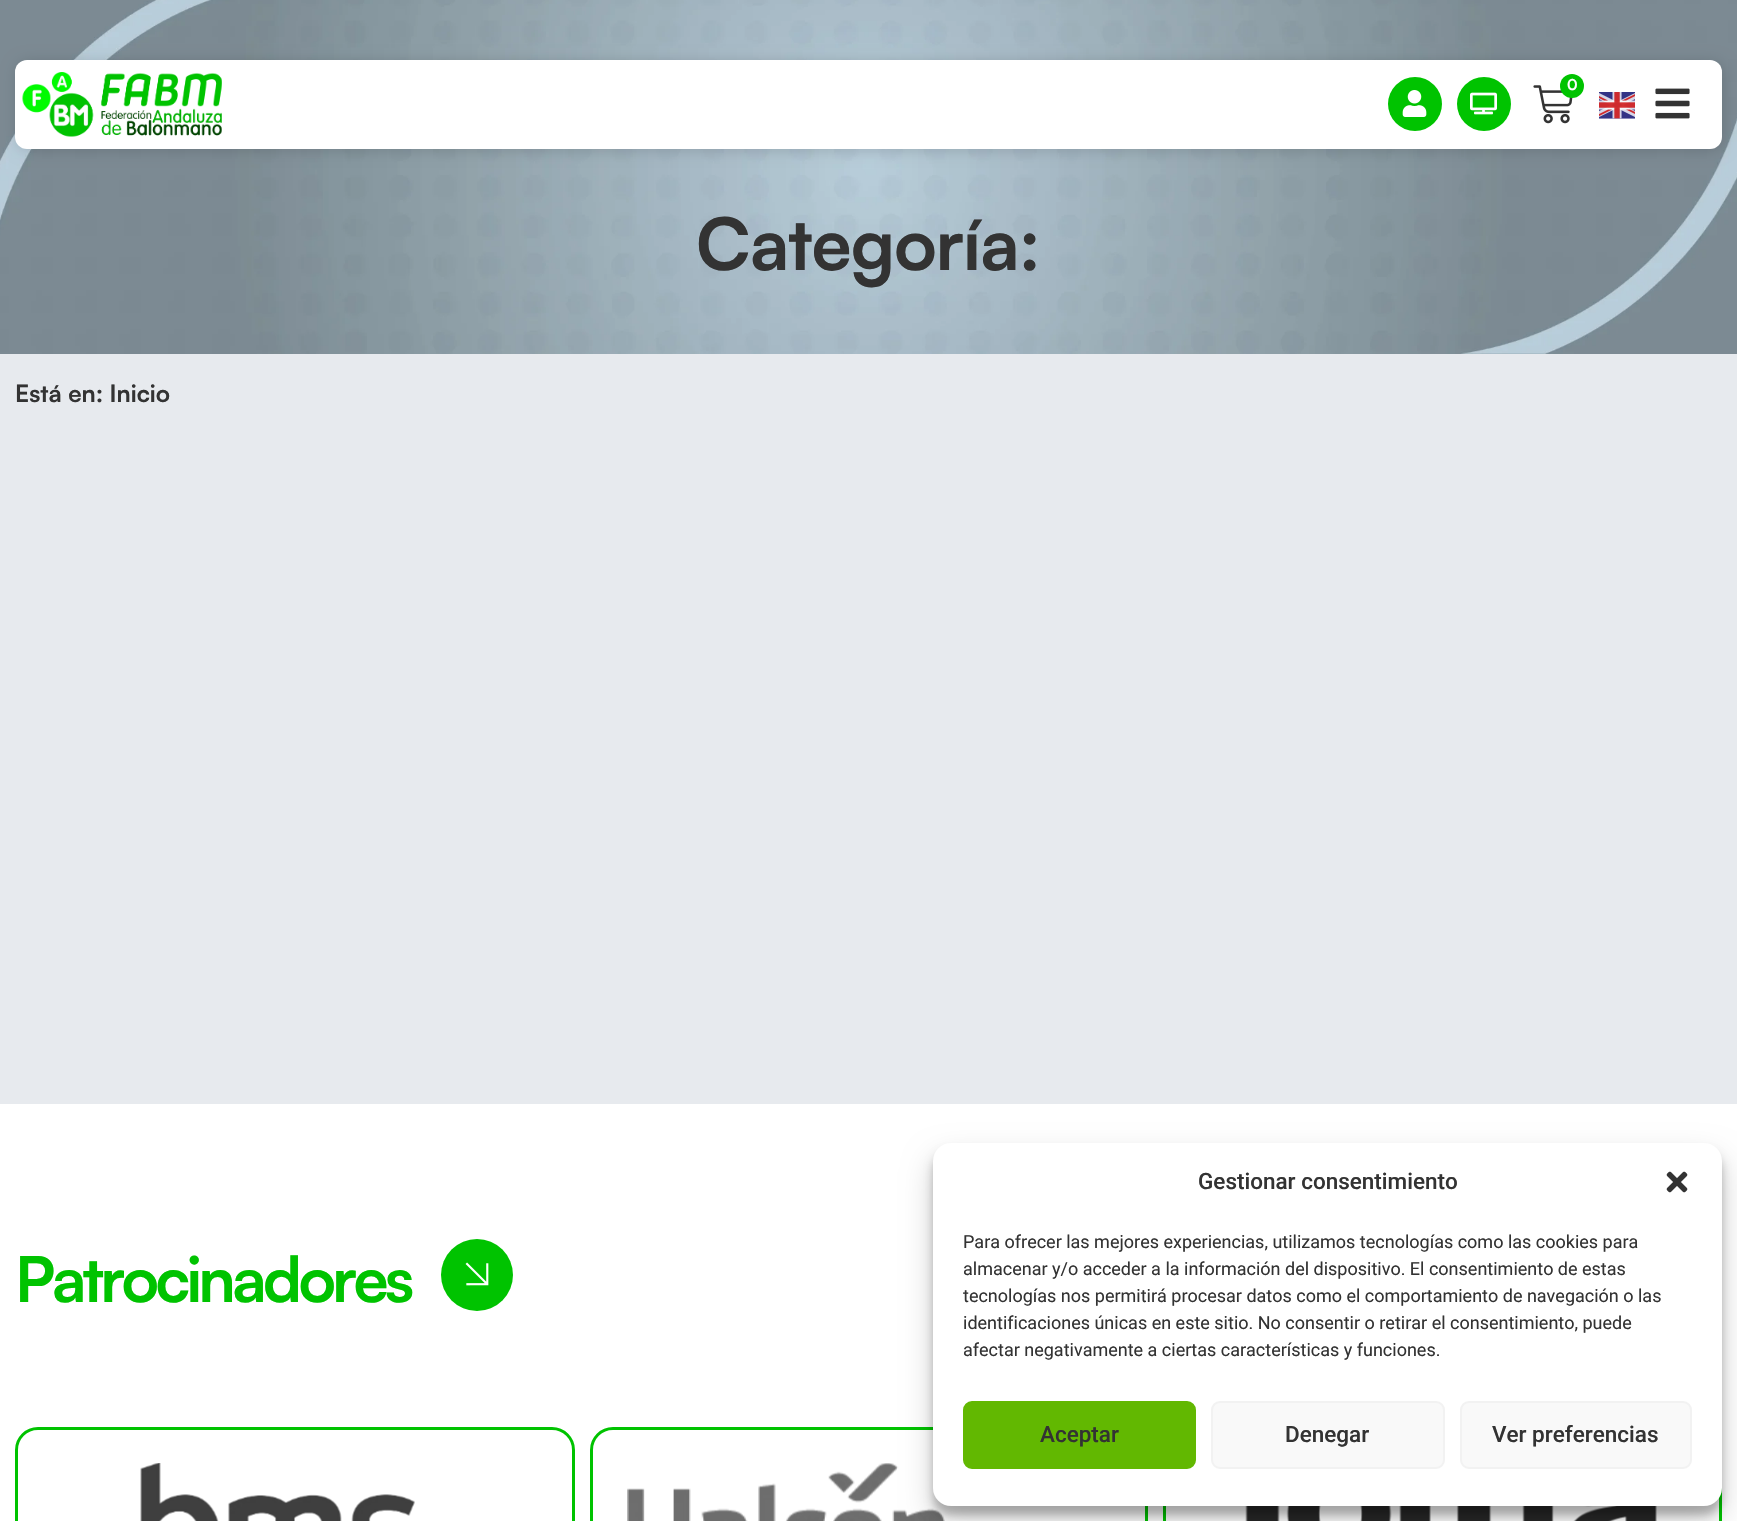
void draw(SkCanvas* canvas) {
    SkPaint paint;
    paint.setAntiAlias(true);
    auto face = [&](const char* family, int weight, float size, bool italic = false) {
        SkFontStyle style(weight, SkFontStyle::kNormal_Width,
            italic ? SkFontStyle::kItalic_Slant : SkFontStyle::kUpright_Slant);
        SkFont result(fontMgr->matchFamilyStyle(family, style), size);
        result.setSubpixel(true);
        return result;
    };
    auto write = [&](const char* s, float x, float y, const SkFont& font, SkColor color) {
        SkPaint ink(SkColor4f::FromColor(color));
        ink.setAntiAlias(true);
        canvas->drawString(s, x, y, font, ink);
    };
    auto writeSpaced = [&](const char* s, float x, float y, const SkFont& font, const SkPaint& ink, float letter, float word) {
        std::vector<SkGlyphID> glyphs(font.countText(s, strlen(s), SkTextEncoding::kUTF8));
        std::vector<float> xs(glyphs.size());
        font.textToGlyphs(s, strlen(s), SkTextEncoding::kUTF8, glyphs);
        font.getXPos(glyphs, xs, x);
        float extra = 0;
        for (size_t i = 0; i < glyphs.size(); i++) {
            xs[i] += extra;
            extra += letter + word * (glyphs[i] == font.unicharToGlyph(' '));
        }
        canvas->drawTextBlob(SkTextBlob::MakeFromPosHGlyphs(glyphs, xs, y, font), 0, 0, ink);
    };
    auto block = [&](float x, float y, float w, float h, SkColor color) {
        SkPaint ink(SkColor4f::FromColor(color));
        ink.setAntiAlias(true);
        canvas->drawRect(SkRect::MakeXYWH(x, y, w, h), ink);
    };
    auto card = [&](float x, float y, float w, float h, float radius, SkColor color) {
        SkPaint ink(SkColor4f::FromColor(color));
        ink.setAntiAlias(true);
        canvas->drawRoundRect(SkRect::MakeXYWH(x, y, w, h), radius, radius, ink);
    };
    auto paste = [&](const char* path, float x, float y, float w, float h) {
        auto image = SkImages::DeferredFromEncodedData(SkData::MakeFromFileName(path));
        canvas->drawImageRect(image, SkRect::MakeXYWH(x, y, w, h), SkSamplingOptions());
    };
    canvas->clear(SK_ColorWHITE);
    paste("pic7.png", 0, 0, 1737, 354);
    paint.setColor(SkColorSetARGB(38, 0, 0, 0));
    paint.setMaskFilter(SkMaskFilter::MakeBlur(kNormal_SkBlurStyle, 7.5f));
    canvas->drawRoundRect(SkRect::MakeXYWH(17, 62, 1707, 88), 12, 12, paint);
    paint.setMaskFilter(nullptr);
    card(15, 60, 1707, 89, 12, SK_ColorWHITE);
    paste("pic1.png", 22, 72, 200, 65);
    paint.setColor(SkColorSetRGB(0, 195, 0));
    canvas->drawCircle(1415, 104, 27, paint);
    paste("pic2.png", 1402, 90, 25, 27);
    canvas->drawCircle(1484, 104, 27, paint);
    paste("pic3.png", 1470, 92, 27, 23);
    paste("pic4.png", 1533, 85, 40, 39);
    canvas->drawCircle(1572, 86, 12, paint);
    auto kFont1 = face("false", 700, 15);
    write("0", 1567, 90, kFont1, SK_ColorWHITE);
    paste("pic5.png", 1599, 92, 36, 27);
    paste("pic6.png", 1655, 88, 35, 31);
    block(0, 354, 1737, 750, SkColorSetRGB(231, 234, 238));
    auto kFont2 = face("false", 700, 24);
    write("Está en: Inicio", 15, 402, kFont2, SkColorSetRGB(51, 51, 51));
    auto kFont3 = face("false", 700, 72);
    paint.setColor(SkColorSetRGB(51, 51, 51));
    writeSpaced("Categoría:", 696, 270, kFont3, paint, -1, 0);
    auto kFont4 = face("false", 700, 63);
    paint.setColor(SkColorSetRGB(0, 195, 0));
    writeSpaced("Patrocinadores", 15, 1302, kFont4, paint, -3.6f, 0);
    canvas->drawCircle(477, 1275, 36, paint);
    paste("pic8.png", 465, 1262, 24, 24);
    paint.setStyle(SkPaint::kStroke_Style);
    paint.setStrokeWidth(3);
    canvas->drawRoundRect(SkRect::MakeXYWH(16.5f, 1428.5f, 557, 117), 21.5f, 21.5f, paint);
    paste("pic9.png", 140, 1463, 275, 58);
    canvas->drawRoundRect(SkRect::MakeXYWH(591.5f, 1428.5f, 555, 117), 21.5f, 21.5f, paint);
    paste("pic10.png", 627, 1463, 318, 58);
    canvas->drawRect(SkRect::MakeXYWH(1164.5f, 1428.5f, 556, 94), paint);
    paste("pic11.png", 1245, 1506, 412, 15);
    paint.setStyle(SkPaint::kFill_Style);
    paint.setColor(SkColorSetARGB(59, 0, 0, 0));
    paint.setMaskFilter(SkMaskFilter::MakeBlur(kNormal_SkBlurStyle, 4.5f));
    canvas->drawRoundRect(SkRect::MakeXYWH(933, 1152, 789, 363), 18, 18, paint);
    paint.setMaskFilter(nullptr);
    paint.setColor(SkColorSetARGB(48, 0, 0, 0));
    paint.setMaskFilter(SkMaskFilter::MakeBlur(kNormal_SkBlurStyle, 15));
    canvas->drawRoundRect(SkRect::MakeXYWH(933, 1158, 789, 363), 18, 18, paint);
    paint.setMaskFilter(nullptr);
    card(933, 1143, 789, 363, 18, SK_ColorWHITE);
    auto kFont5 = face("Roboto", 500, 22.5f);
    write("Gestionar consentimiento", 1198, 1189, kFont5, SkColorSetRGB(51, 51, 51));
    paste("pic12.png", 1666, 1171, 22, 22);
    auto kFont6 = face("Roboto", 400, 18);
    write("Para ofrecer las mejores experiencias, utilizamos tecnologías como las cookies para", 963, 1248, kFont6, SkColorSetRGB(51, 51, 51));
    write("almacenar y/o acceder a la información del dispositivo. El consentimiento de estas", 963, 1275, kFont6, SkColorSetRGB(51, 51, 51));
    write("tecnologías nos permitirá procesar datos como el comportamiento de navegación o las", 963, 1302, kFont6, SkColorSetRGB(51, 51, 51));
    write("identificaciones únicas en este sitio. No consentir o retirar el consentimiento, puede", 963, 1329, kFont6, SkColorSetRGB(51, 51, 51));
    write("afectar negativamente a ciertas características y funciones.", 963, 1356, kFont6, SkColorSetRGB(51, 51, 51));
    paint.setColor(SkColorSetRGB(98, 184, 1));
    canvas->drawRoundRect(SkRect::MakeXYWH(964, 1402, 231, 66), 8, 8, paint);
    paint.setStyle(SkPaint::kStroke_Style);
    paint.setStrokeWidth(2);
    canvas->drawRoundRect(SkRect::MakeXYWH(964, 1402, 231, 66), 8, 8, paint);
    write("Aceptar", 1040, 1442, kFont5, SkColorSetRGB(51, 51, 51));
    paint.setStyle(SkPaint::kFill_Style);
    paint.setColor(SkColorSetRGB(249, 249, 249));
    canvas->drawRoundRect(SkRect::MakeXYWH(1212, 1402, 232, 66), 8, 8, paint);
    paint.setStyle(SkPaint::kStroke_Style);
    paint.setColor(SkColorSetRGB(242, 242, 242));
    canvas->drawRoundRect(SkRect::MakeXYWH(1212, 1402, 232, 66), 8, 8, paint);
    write("Denegar", 1285, 1442, kFont5, SkColorSetRGB(51, 51, 51));
    paint.setStyle(SkPaint::kFill_Style);
    paint.setColor(SkColorSetRGB(249, 249, 249));
    canvas->drawRoundRect(SkRect::MakeXYWH(1461, 1402, 230, 66), 8, 8, paint);
    paint.setStyle(SkPaint::kStroke_Style);
    paint.setColor(SkColorSetRGB(242, 242, 242));
    canvas->drawRoundRect(SkRect::MakeXYWH(1461, 1402, 230, 66), 8, 8, paint);
    write("Ver preferencias", 1492, 1442, kFont5, SkColorSetRGB(51, 51, 51));
}
